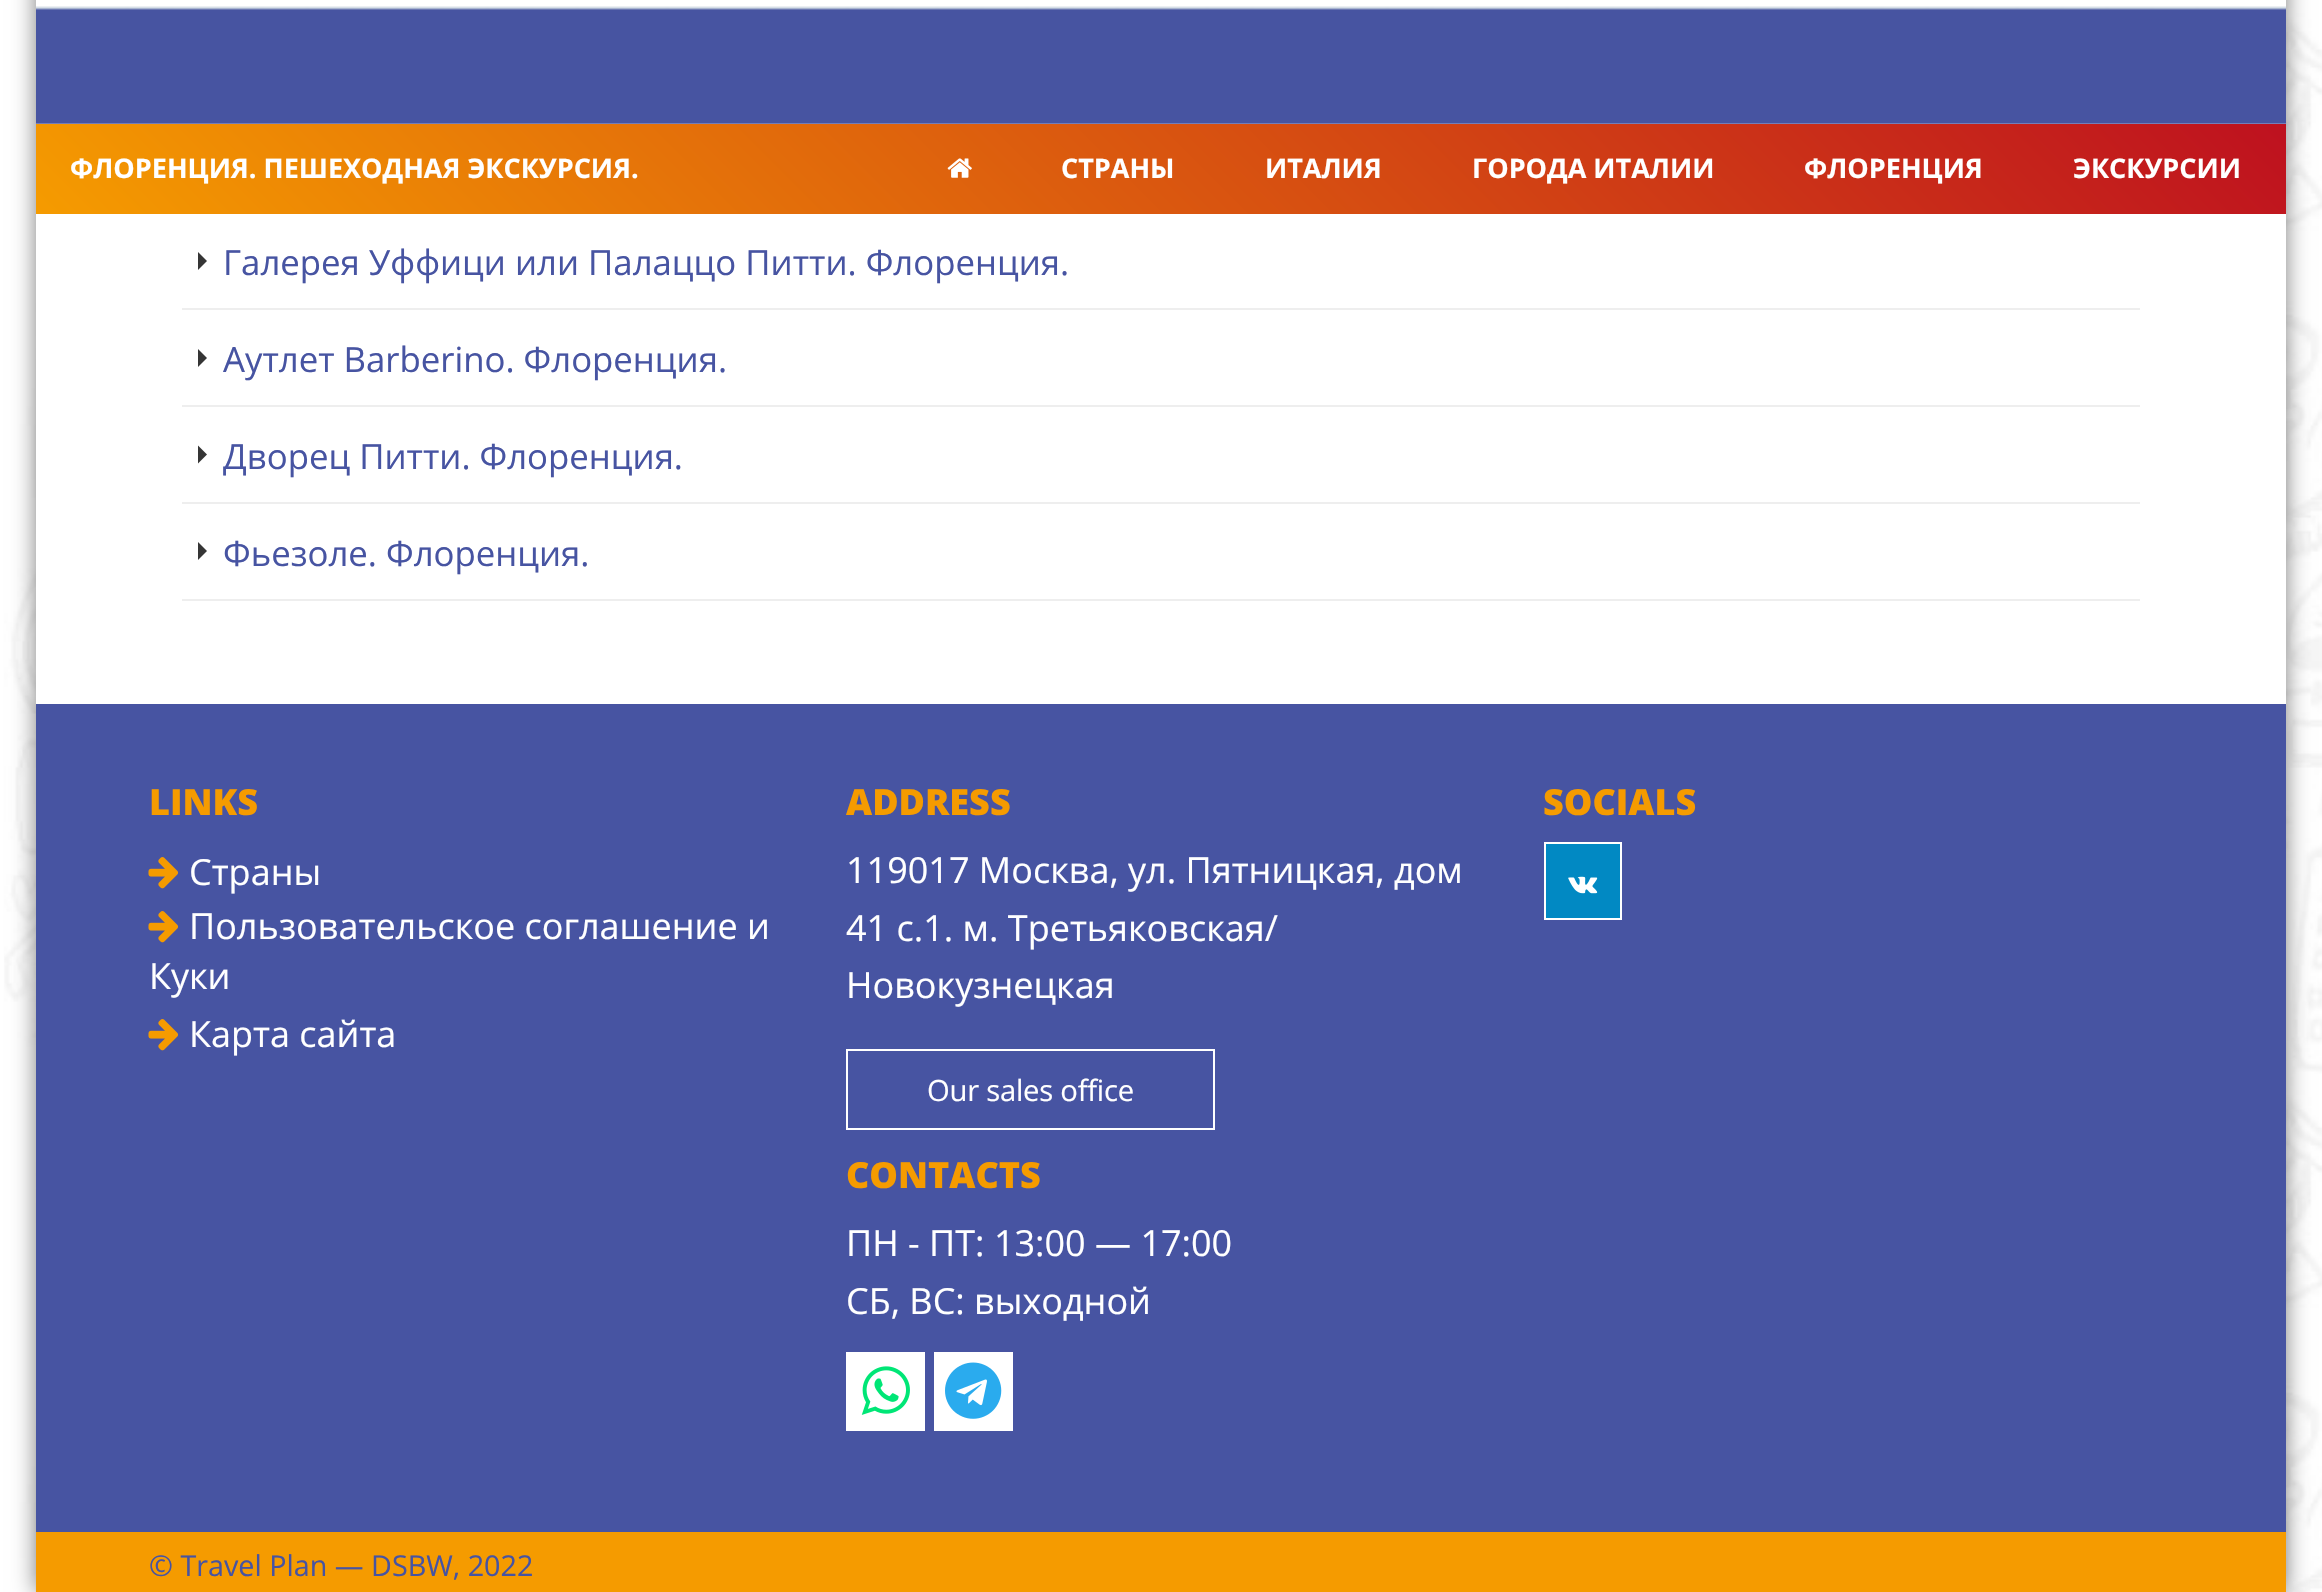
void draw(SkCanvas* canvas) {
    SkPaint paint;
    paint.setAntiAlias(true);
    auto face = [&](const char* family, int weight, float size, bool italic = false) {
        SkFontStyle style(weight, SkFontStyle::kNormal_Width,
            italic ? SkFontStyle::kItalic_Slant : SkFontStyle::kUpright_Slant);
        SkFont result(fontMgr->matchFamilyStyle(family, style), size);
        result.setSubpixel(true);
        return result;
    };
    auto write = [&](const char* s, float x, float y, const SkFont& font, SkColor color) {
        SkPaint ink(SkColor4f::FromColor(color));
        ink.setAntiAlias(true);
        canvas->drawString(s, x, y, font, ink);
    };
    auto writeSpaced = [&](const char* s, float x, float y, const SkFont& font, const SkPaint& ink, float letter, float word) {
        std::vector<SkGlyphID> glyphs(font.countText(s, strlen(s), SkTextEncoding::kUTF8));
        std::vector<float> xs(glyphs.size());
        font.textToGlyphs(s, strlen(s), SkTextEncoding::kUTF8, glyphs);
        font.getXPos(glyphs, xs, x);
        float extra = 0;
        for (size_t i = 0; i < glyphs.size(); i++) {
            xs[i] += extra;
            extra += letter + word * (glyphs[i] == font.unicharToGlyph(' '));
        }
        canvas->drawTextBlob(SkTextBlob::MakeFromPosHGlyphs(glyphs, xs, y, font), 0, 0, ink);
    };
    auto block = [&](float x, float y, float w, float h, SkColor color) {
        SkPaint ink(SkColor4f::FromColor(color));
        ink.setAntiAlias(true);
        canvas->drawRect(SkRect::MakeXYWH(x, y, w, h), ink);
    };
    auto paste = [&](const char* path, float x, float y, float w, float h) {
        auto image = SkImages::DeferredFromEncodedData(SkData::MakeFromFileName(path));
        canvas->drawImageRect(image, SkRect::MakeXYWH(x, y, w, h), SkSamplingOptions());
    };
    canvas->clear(SK_ColorWHITE);
    paste("pic1.png", 4, 0, 2318, 1592);
    paint.setColor(SkColorSetARGB(128, 0, 0, 0));
    paint.setMaskFilter(SkMaskFilter::MakeBlur(kNormal_SkBlurStyle, 11));
    canvas->drawRect(SkRect::MakeXYWH(36, -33, 2250, 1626), paint);
    paint.setMaskFilter(nullptr);
    block(36, 214, 2250, 490, SK_ColorWHITE);
    block(36, 0, 2250, 124, SK_ColorWHITE);
    paste("pic2.png", 36, 6, 2250, 118);
    {
        const SkColor colors[] = {SkColorSetRGB(245, 155, 0), SkColorSetRGB(190, 17, 31)};
        const float stops[] = {0, 1};
        const SkPoint ends[] = {{576, 754}, {1746, -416}};
        paint.setShader(SkGradientShader::MakeLinear(ends, colors, stops, 2, SkTileMode::kClamp));
        paint.setAlpha(255);
    }
    canvas->drawRect(SkRect::MakeXYWH(36, 124, 2250, 90), paint);
    auto kFont1 = face("Open Sans", 700, 27);
    write("ФЛОРЕНЦИЯ. ПЕШЕХОДНАЯ ЭКСКУРСИЯ.", 70, 178, kFont1, SK_ColorWHITE);
    paste("pic3.png", 947, 158, 25, 20);
    write("СТРАНЫ", 1061, 178, kFont1, SK_ColorWHITE);
    write("ИТАЛИЯ", 1265, 178, kFont1, SK_ColorWHITE);
    write("ГОРОДА ИТАЛИИ", 1472, 178, kFont1, SK_ColorWHITE);
    write("ФЛОРЕНЦИЯ", 1804, 178, kFont1, SK_ColorWHITE);
    write("ЭКСКУРСИИ", 2073, 178, kFont1, SK_ColorWHITE);
    block(182, 308, 1958, 2, SkColorSetRGB(238, 238, 238));
    paint.setShader(nullptr);
    paint.setColor(SkColorSetRGB(53, 53, 53));
    canvas->drawPath(SkPathBuilder().moveTo(198, 270).lineTo(198, 252).lineTo(207, 261).close().detach(), paint);
    auto kFont2 = face("Open Sans", 400, 34.75f);
    write("Галерея Уффици или Палаццо Питти. Флоренция.", 223, 275, kFont2, SkColorSetRGB(71, 84, 162));
    block(182, 405, 1958, 2, SkColorSetRGB(238, 238, 238));
    canvas->drawPath(SkPathBuilder().moveTo(198, 367).lineTo(198, 349).lineTo(207, 358).close().detach(), paint);
    write("Аутлет Barberino. Флоренция.", 223, 372, kFont2, SkColorSetRGB(71, 84, 162));
    block(182, 502, 1958, 2, SkColorSetRGB(238, 238, 238));
    canvas->drawPath(SkPathBuilder().moveTo(198, 463.5f).lineTo(198, 445.5f).lineTo(207, 454.5f).close().detach(), paint);
    write("Дворец Питти. Флоренция.", 223, 469, kFont2, SkColorSetRGB(71, 84, 162));
    block(182, 599, 1958, 2, SkColorSetRGB(238, 238, 238));
    canvas->drawPath(SkPathBuilder().moveTo(198, 560).lineTo(198, 542).lineTo(207, 551).close().detach(), paint);
    write("Фьезоле. Флоренция.", 223, 566, kFont2, SkColorSetRGB(71, 84, 162));
    block(36, 704, 2250, 828, SkColorSetRGB(71, 84, 162));
    auto kFont3 = face("Open Sans", 800, 36);
    write("LINKS", 149, 815, kFont3, SkColorSetRGB(245, 155, 0));
    paste("pic4.png", 148, 857, 31, 32);
    auto kFont4 = face("Open Sans", 400, 36);
    write("Страны", 189, 885, kFont4, SK_ColorWHITE);
    paste("pic4.png", 148, 911, 31, 32);
    write("Пользовательское соглашение и", 189, 939, kFont4, SK_ColorWHITE);
    write("Куки", 149, 989, kFont4, SK_ColorWHITE);
    paste("pic4.png", 148, 1019, 31, 32);
    write("Карта сайта", 189, 1047, kFont4, SK_ColorWHITE);
    write("ADDRESS", 846, 815, kFont3, SkColorSetRGB(245, 155, 0));
    write("119017 Москва, ул. Пятницкая, дом", 846, 883, kFont4, SK_ColorWHITE);
    write("41 с.1. м. Третьяковская/", 846, 941, kFont4, SK_ColorWHITE);
    write("Новокузнецкая", 846, 998, kFont4, SK_ColorWHITE);
    paint.setStyle(SkPaint::kStroke_Style);
    paint.setStrokeWidth(2);
    paint.setColor(SK_ColorWHITE);
    canvas->drawRect(SkRect::MakeXYWH(847, 1050, 367, 79), paint);
    auto kFont5 = face("Open Sans", 400, 29.25f);
    paint.setStyle(SkPaint::kFill_Style);
    writeSpaced("Our sales office", 927, 1101, kFont5, paint, -0.25f, 0);
    write("CONTACTS", 846, 1188, kFont3, SkColorSetRGB(245, 155, 0));
    write("ПН - ПТ: 13:00 — 17:00", 846, 1256, kFont4, SK_ColorWHITE);
    write("СБ, ВС: выходной", 846, 1314, kFont4, SK_ColorWHITE);
    block(846, 1352, 79, 79, SK_ColorWHITE);
    paste("pic5.png", 861, 1366, 49, 49);
    block(934, 1352, 79, 79, SK_ColorWHITE);
    paste("pic6.png", 945, 1362, 57, 57);
    write("SOCIALS", 1543, 815, kFont3, SkColorSetRGB(245, 155, 0));
    paint.setColor(SkColorSetRGB(1, 137, 195));
    canvas->drawRect(SkRect::MakeXYWH(1545, 843, 76, 76), paint);
    paint.setStyle(SkPaint::kStroke_Style);
    paint.setColor(SK_ColorWHITE);
    canvas->drawRect(SkRect::MakeXYWH(1545, 843, 76, 76), paint);
    paste("pic7.png", 1568, 876, 30, 18);
    block(36, 1532, 2250, 60, SkColorSetRGB(245, 155, 0));
    auto kFont6 = face("Open Sans", 400, 28.75f);
    write("© Travel Plan — DSBW, 2022", 149, 1576, kFont6, SkColorSetRGB(71, 84, 162));
}
